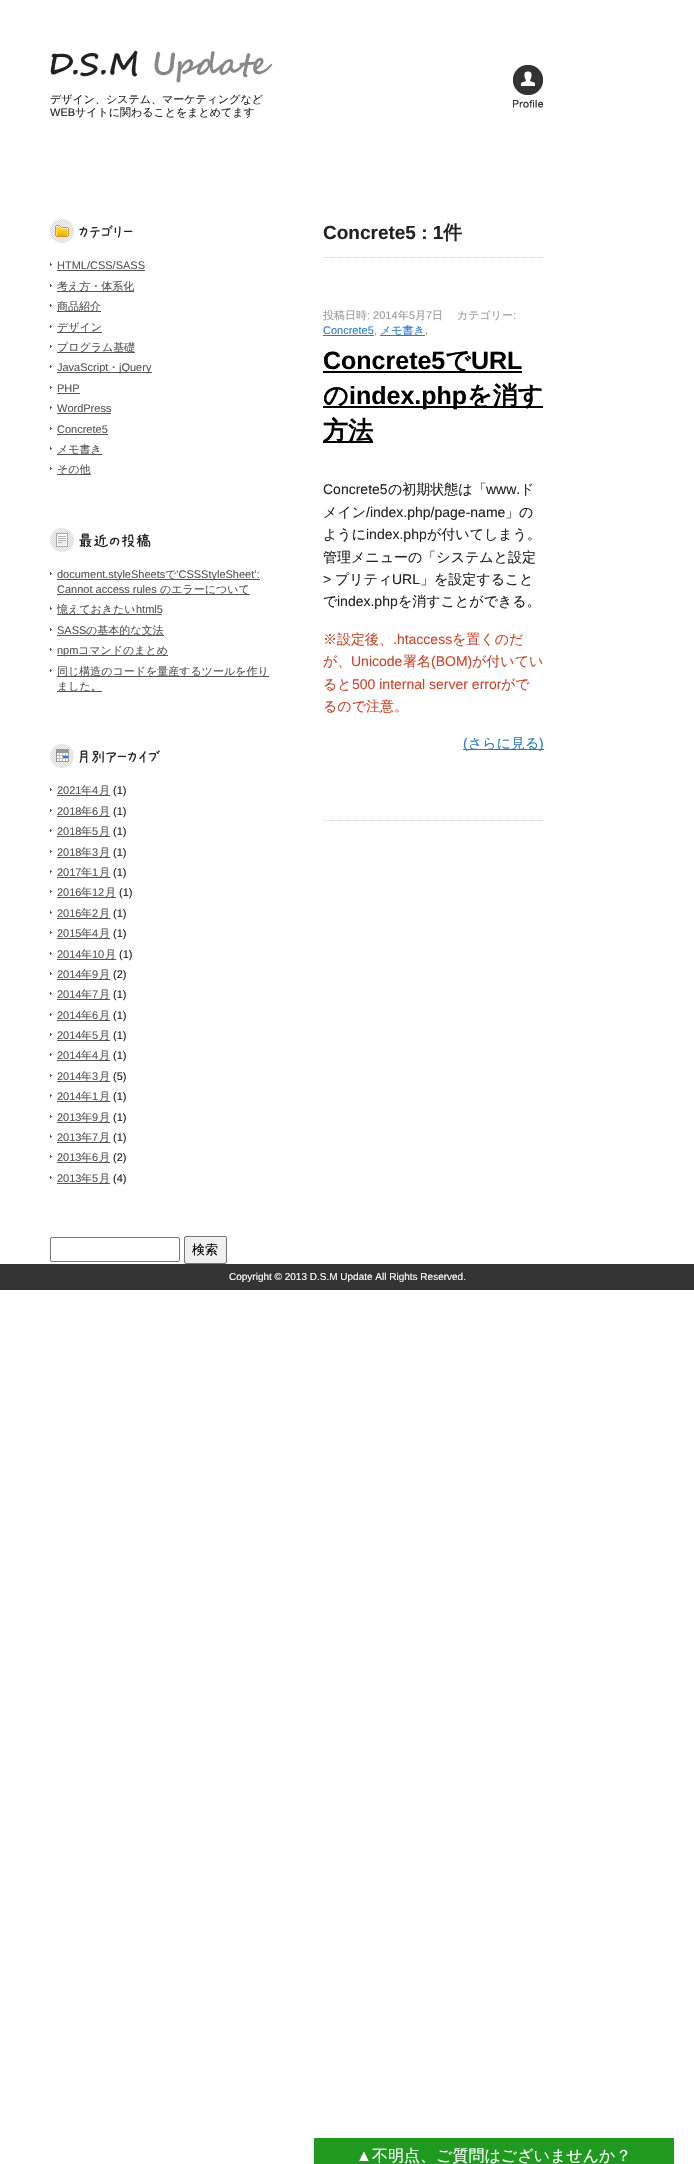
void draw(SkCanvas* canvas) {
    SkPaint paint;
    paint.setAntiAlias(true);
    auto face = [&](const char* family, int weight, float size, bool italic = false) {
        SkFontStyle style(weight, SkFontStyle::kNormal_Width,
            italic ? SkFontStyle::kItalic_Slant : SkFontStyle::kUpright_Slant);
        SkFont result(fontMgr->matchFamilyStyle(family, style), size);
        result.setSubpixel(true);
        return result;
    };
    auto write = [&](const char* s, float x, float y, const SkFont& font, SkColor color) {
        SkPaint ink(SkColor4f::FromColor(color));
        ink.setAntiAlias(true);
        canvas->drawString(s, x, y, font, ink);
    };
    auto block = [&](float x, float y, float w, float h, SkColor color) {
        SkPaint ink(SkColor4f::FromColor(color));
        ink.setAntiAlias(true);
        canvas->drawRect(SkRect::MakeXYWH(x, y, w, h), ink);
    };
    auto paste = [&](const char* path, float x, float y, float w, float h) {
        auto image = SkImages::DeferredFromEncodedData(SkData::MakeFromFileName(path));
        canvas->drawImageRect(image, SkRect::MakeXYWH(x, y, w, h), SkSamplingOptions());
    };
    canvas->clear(SK_ColorWHITE);
    paste("pic1.png", 50, 50, 223, 33);
    auto kFont1 = face("WenQuanYi Zen Hei", 500, 11);
    write("デザイン、システム、マーケティングなど", 50, 103, kFont1, SkColorSetRGB(34, 34, 34));
    auto kFont2 = face("Liberation Sans", 400, 11);
    write("WEB", 50, 116, kFont2, SkColorSetRGB(34, 34, 34));
    write("サイトに関わることをまとめてます", 75, 116, kFont1, SkColorSetRGB(34, 34, 34));
    paste("pic2.png", 50, 219, 83, 24);
    paste("pic3.png", 50, 263, 2, 3);
    write("HTML/CSS/SASS", 57, 269, kFont2, SkColorSetRGB(85, 85, 85));
    block(57, 270, 88, 1, SkColorSetRGB(85, 85, 85));
    paste("pic3.png", 50, 284, 2, 3);
    block(57, 291, 77, 1, SkColorSetRGB(85, 85, 85));
    write("考え方・体系化", 57, 290, kFont1, SkColorSetRGB(85, 85, 85));
    paste("pic3.png", 50, 304, 2, 3);
    block(57, 311, 44, 1, SkColorSetRGB(85, 85, 85));
    write("商品紹介", 57, 310, kFont1, SkColorSetRGB(85, 85, 85));
    paste("pic3.png", 50, 325, 2, 3);
    block(57, 332, 45, 1, SkColorSetRGB(85, 85, 85));
    write("デザイン", 57, 331, kFont1, SkColorSetRGB(85, 85, 85));
    paste("pic3.png", 50, 345, 2, 3);
    block(57, 352, 78, 1, SkColorSetRGB(85, 85, 85));
    write("プログラム基礎", 57, 351, kFont1, SkColorSetRGB(85, 85, 85));
    paste("pic3.png", 50, 365, 2, 3);
    block(57, 372, 95, 1, SkColorSetRGB(85, 85, 85));
    write("JavaScript", 57, 371, kFont2, SkColorSetRGB(85, 85, 85));
    write("・", 108, 371, kFont1, SkColorSetRGB(85, 85, 85));
    write("jQuery", 119, 371, kFont2, SkColorSetRGB(85, 85, 85));
    paste("pic3.png", 50, 386, 2, 3);
    write("PHP", 57, 392, kFont2, SkColorSetRGB(85, 85, 85));
    block(57, 393, 23, 1, SkColorSetRGB(85, 85, 85));
    paste("pic3.png", 50, 406, 2, 3);
    write("WordPress", 57, 412, kFont2, SkColorSetRGB(85, 85, 85));
    block(57, 413, 54, 1, SkColorSetRGB(85, 85, 85));
    paste("pic3.png", 50, 427, 2, 3);
    write("Concrete5", 57, 433, kFont2, SkColorSetRGB(85, 85, 85));
    block(57, 434, 51, 1, SkColorSetRGB(85, 85, 85));
    paste("pic3.png", 50, 447, 2, 3);
    block(57, 454, 45, 1, SkColorSetRGB(85, 85, 85));
    write("メモ書き", 57, 453, kFont1, SkColorSetRGB(85, 85, 85));
    paste("pic3.png", 50, 467, 2, 3);
    block(57, 474, 34, 1, SkColorSetRGB(85, 85, 85));
    write("その他", 57, 473, kFont1, SkColorSetRGB(85, 85, 85));
    paste("pic4.png", 50, 528, 101, 24);
    paste("pic3.png", 50, 572, 2, 3);
    block(57, 579, 203, 1, SkColorSetRGB(85, 85, 85));
    write("document.styleSheets", 57, 578, kFont2, SkColorSetRGB(85, 85, 85));
    write("で", 165, 578, kFont1, SkColorSetRGB(85, 85, 85));
    write("’CSSStyleSheet’:", 176, 578, kFont2, SkColorSetRGB(85, 85, 85));
    write("Cannot access rules", 57, 593, kFont2, SkColorSetRGB(85, 85, 85));
    block(57, 594, 193, 1, SkColorSetRGB(85, 85, 85));
    write("のエラーについて", 160, 593, kFont1, SkColorSetRGB(85, 85, 85));
    paste("pic3.png", 50, 607, 2, 3);
    block(57, 614, 105, 1, SkColorSetRGB(85, 85, 85));
    write("憶えておきたい", 57, 613, kFont1, SkColorSetRGB(85, 85, 85));
    write("html5", 136, 613, kFont2, SkColorSetRGB(85, 85, 85));
    paste("pic3.png", 50, 628, 2, 3);
    write("SASS", 57, 634, kFont2, SkColorSetRGB(85, 85, 85));
    block(57, 635, 107, 1, SkColorSetRGB(85, 85, 85));
    write("の基本的な文法", 86, 634, kFont1, SkColorSetRGB(85, 85, 85));
    paste("pic3.png", 50, 648, 2, 3);
    block(57, 655, 111, 1, SkColorSetRGB(85, 85, 85));
    write("npm", 57, 654, kFont2, SkColorSetRGB(85, 85, 85));
    write("コマンドのまとめ", 78, 654, kFont1, SkColorSetRGB(85, 85, 85));
    paste("pic3.png", 50, 669, 2, 3);
    block(57, 676, 212, 1, SkColorSetRGB(85, 85, 85));
    write("同じ構造のコードを量産するツールを作り", 57, 675, kFont1, SkColorSetRGB(85, 85, 85));
    block(57, 691, 45, 1, SkColorSetRGB(85, 85, 85));
    write("ました。", 57, 690, kFont1, SkColorSetRGB(85, 85, 85));
    paste("pic5.png", 50, 744, 110, 24);
    paste("pic3.png", 50, 788, 2, 3);
    write("2021", 57, 794, kFont2, SkColorSetRGB(85, 85, 85));
    block(57, 795, 53, 1, SkColorSetRGB(85, 85, 85));
    write("年", 81, 794, kFont1, SkColorSetRGB(85, 85, 85));
    write("4", 92, 794, kFont2, SkColorSetRGB(85, 85, 85));
    write("月", 99, 794, kFont1, SkColorSetRGB(85, 85, 85));
    write("(1)", 113, 794, kFont2, SkColorSetRGB(34, 34, 34));
    paste("pic3.png", 50, 809, 2, 3);
    write("2018", 57, 815, kFont2, SkColorSetRGB(85, 85, 85));
    block(57, 816, 53, 1, SkColorSetRGB(85, 85, 85));
    write("年", 81, 815, kFont1, SkColorSetRGB(85, 85, 85));
    write("6", 92, 815, kFont2, SkColorSetRGB(85, 85, 85));
    write("月", 99, 815, kFont1, SkColorSetRGB(85, 85, 85));
    write("(1)", 113, 815, kFont2, SkColorSetRGB(34, 34, 34));
    paste("pic3.png", 50, 829, 2, 3);
    write("2018", 57, 835, kFont2, SkColorSetRGB(85, 85, 85));
    block(57, 836, 53, 1, SkColorSetRGB(85, 85, 85));
    write("年", 81, 835, kFont1, SkColorSetRGB(85, 85, 85));
    write("5", 92, 835, kFont2, SkColorSetRGB(85, 85, 85));
    write("月", 99, 835, kFont1, SkColorSetRGB(85, 85, 85));
    write("(1)", 113, 835, kFont2, SkColorSetRGB(34, 34, 34));
    paste("pic3.png", 50, 850, 2, 3);
    write("2018", 57, 856, kFont2, SkColorSetRGB(85, 85, 85));
    block(57, 857, 53, 1, SkColorSetRGB(85, 85, 85));
    write("年", 81, 856, kFont1, SkColorSetRGB(85, 85, 85));
    write("3", 92, 856, kFont2, SkColorSetRGB(85, 85, 85));
    write("月", 99, 856, kFont1, SkColorSetRGB(85, 85, 85));
    write("(1)", 113, 856, kFont2, SkColorSetRGB(34, 34, 34));
    paste("pic3.png", 50, 870, 2, 3);
    write("2017", 57, 876, kFont2, SkColorSetRGB(85, 85, 85));
    block(57, 877, 53, 1, SkColorSetRGB(85, 85, 85));
    write("年", 81, 876, kFont1, SkColorSetRGB(85, 85, 85));
    write("1", 92, 876, kFont2, SkColorSetRGB(85, 85, 85));
    write("月", 99, 876, kFont1, SkColorSetRGB(85, 85, 85));
    write("(1)", 113, 876, kFont2, SkColorSetRGB(34, 34, 34));
    paste("pic3.png", 50, 890, 2, 3);
    write("2016", 57, 896, kFont2, SkColorSetRGB(85, 85, 85));
    block(57, 897, 59, 1, SkColorSetRGB(85, 85, 85));
    write("年", 81, 896, kFont1, SkColorSetRGB(85, 85, 85));
    write("12", 92, 896, kFont2, SkColorSetRGB(85, 85, 85));
    write("月", 105, 896, kFont1, SkColorSetRGB(85, 85, 85));
    write("(1)", 119, 896, kFont2, SkColorSetRGB(34, 34, 34));
    paste("pic3.png", 50, 911, 2, 3);
    write("2016", 57, 917, kFont2, SkColorSetRGB(85, 85, 85));
    block(57, 918, 53, 1, SkColorSetRGB(85, 85, 85));
    write("年", 81, 917, kFont1, SkColorSetRGB(85, 85, 85));
    write("2", 92, 917, kFont2, SkColorSetRGB(85, 85, 85));
    write("月", 99, 917, kFont1, SkColorSetRGB(85, 85, 85));
    write("(1)", 113, 917, kFont2, SkColorSetRGB(34, 34, 34));
    paste("pic3.png", 50, 931, 2, 3);
    write("2015", 57, 937, kFont2, SkColorSetRGB(85, 85, 85));
    block(57, 938, 53, 1, SkColorSetRGB(85, 85, 85));
    write("年", 81, 937, kFont1, SkColorSetRGB(85, 85, 85));
    write("4", 92, 937, kFont2, SkColorSetRGB(85, 85, 85));
    write("月", 99, 937, kFont1, SkColorSetRGB(85, 85, 85));
    write("(1)", 113, 937, kFont2, SkColorSetRGB(34, 34, 34));
    paste("pic3.png", 50, 952, 2, 3);
    write("2014", 57, 958, kFont2, SkColorSetRGB(85, 85, 85));
    block(57, 959, 59, 1, SkColorSetRGB(85, 85, 85));
    write("年", 81, 958, kFont1, SkColorSetRGB(85, 85, 85));
    write("10", 92, 958, kFont2, SkColorSetRGB(85, 85, 85));
    write("月", 105, 958, kFont1, SkColorSetRGB(85, 85, 85));
    write("(1)", 119, 958, kFont2, SkColorSetRGB(34, 34, 34));
    paste("pic3.png", 50, 972, 2, 3);
    write("2014", 57, 978, kFont2, SkColorSetRGB(85, 85, 85));
    block(57, 979, 53, 1, SkColorSetRGB(85, 85, 85));
    write("年", 81, 978, kFont1, SkColorSetRGB(85, 85, 85));
    write("9", 92, 978, kFont2, SkColorSetRGB(85, 85, 85));
    write("月", 99, 978, kFont1, SkColorSetRGB(85, 85, 85));
    write("(2)", 113, 978, kFont2, SkColorSetRGB(34, 34, 34));
    paste("pic3.png", 50, 992, 2, 3);
    write("2014", 57, 998, kFont2, SkColorSetRGB(85, 85, 85));
    block(57, 999, 53, 1, SkColorSetRGB(85, 85, 85));
    write("年", 81, 998, kFont1, SkColorSetRGB(85, 85, 85));
    write("7", 92, 998, kFont2, SkColorSetRGB(85, 85, 85));
    write("月", 99, 998, kFont1, SkColorSetRGB(85, 85, 85));
    write("(1)", 113, 998, kFont2, SkColorSetRGB(34, 34, 34));
    paste("pic3.png", 50, 1013, 2, 3);
    write("2014", 57, 1019, kFont2, SkColorSetRGB(85, 85, 85));
    block(57, 1020, 53, 1, SkColorSetRGB(85, 85, 85));
    write("年", 81, 1019, kFont1, SkColorSetRGB(85, 85, 85));
    write("6", 92, 1019, kFont2, SkColorSetRGB(85, 85, 85));
    write("月", 99, 1019, kFont1, SkColorSetRGB(85, 85, 85));
    write("(1)", 113, 1019, kFont2, SkColorSetRGB(34, 34, 34));
    paste("pic3.png", 50, 1033, 2, 3);
    write("2014", 57, 1039, kFont2, SkColorSetRGB(85, 85, 85));
    block(57, 1040, 53, 1, SkColorSetRGB(85, 85, 85));
    write("年", 81, 1039, kFont1, SkColorSetRGB(85, 85, 85));
    write("5", 92, 1039, kFont2, SkColorSetRGB(85, 85, 85));
    write("月", 99, 1039, kFont1, SkColorSetRGB(85, 85, 85));
    write("(1)", 113, 1039, kFont2, SkColorSetRGB(34, 34, 34));
    paste("pic3.png", 50, 1053, 2, 3);
    write("2014", 57, 1059, kFont2, SkColorSetRGB(85, 85, 85));
    block(57, 1060, 53, 1, SkColorSetRGB(85, 85, 85));
    write("年", 81, 1059, kFont1, SkColorSetRGB(85, 85, 85));
    write("4", 92, 1059, kFont2, SkColorSetRGB(85, 85, 85));
    write("月", 99, 1059, kFont1, SkColorSetRGB(85, 85, 85));
    write("(1)", 113, 1059, kFont2, SkColorSetRGB(34, 34, 34));
    paste("pic3.png", 50, 1074, 2, 3);
    write("2014", 57, 1080, kFont2, SkColorSetRGB(85, 85, 85));
    block(57, 1081, 53, 1, SkColorSetRGB(85, 85, 85));
    write("年", 81, 1080, kFont1, SkColorSetRGB(85, 85, 85));
    write("3", 92, 1080, kFont2, SkColorSetRGB(85, 85, 85));
    write("月", 99, 1080, kFont1, SkColorSetRGB(85, 85, 85));
    write("(5)", 113, 1080, kFont2, SkColorSetRGB(34, 34, 34));
    paste("pic3.png", 50, 1094, 2, 3);
    write("2014", 57, 1100, kFont2, SkColorSetRGB(85, 85, 85));
    block(57, 1101, 53, 1, SkColorSetRGB(85, 85, 85));
    write("年", 81, 1100, kFont1, SkColorSetRGB(85, 85, 85));
    write("1", 92, 1100, kFont2, SkColorSetRGB(85, 85, 85));
    write("月", 99, 1100, kFont1, SkColorSetRGB(85, 85, 85));
    write("(1)", 113, 1100, kFont2, SkColorSetRGB(34, 34, 34));
    paste("pic3.png", 50, 1115, 2, 3);
    write("2013", 57, 1121, kFont2, SkColorSetRGB(85, 85, 85));
    block(57, 1122, 53, 1, SkColorSetRGB(85, 85, 85));
    write("年", 81, 1121, kFont1, SkColorSetRGB(85, 85, 85));
    write("9", 92, 1121, kFont2, SkColorSetRGB(85, 85, 85));
    write("月", 99, 1121, kFont1, SkColorSetRGB(85, 85, 85));
    write("(1)", 113, 1121, kFont2, SkColorSetRGB(34, 34, 34));
    paste("pic3.png", 50, 1135, 2, 3);
    write("2013", 57, 1141, kFont2, SkColorSetRGB(85, 85, 85));
    block(57, 1142, 53, 1, SkColorSetRGB(85, 85, 85));
    write("年", 81, 1141, kFont1, SkColorSetRGB(85, 85, 85));
    write("7", 92, 1141, kFont2, SkColorSetRGB(85, 85, 85));
    write("月", 99, 1141, kFont1, SkColorSetRGB(85, 85, 85));
    write("(1)", 113, 1141, kFont2, SkColorSetRGB(34, 34, 34));
    paste("pic3.png", 50, 1155, 2, 3);
    write("2013", 57, 1161, kFont2, SkColorSetRGB(85, 85, 85));
    block(57, 1162, 53, 1, SkColorSetRGB(85, 85, 85));
    write("年", 81, 1161, kFont1, SkColorSetRGB(85, 85, 85));
    write("6", 92, 1161, kFont2, SkColorSetRGB(85, 85, 85));
    write("月", 99, 1161, kFont1, SkColorSetRGB(85, 85, 85));
    write("(2)", 113, 1161, kFont2, SkColorSetRGB(34, 34, 34));
    paste("pic3.png", 50, 1176, 2, 3);
    write("2013", 57, 1182, kFont2, SkColorSetRGB(85, 85, 85));
    block(57, 1183, 53, 1, SkColorSetRGB(85, 85, 85));
    write("年", 81, 1182, kFont1, SkColorSetRGB(85, 85, 85));
    write("5", 92, 1182, kFont2, SkColorSetRGB(85, 85, 85));
    write("月", 99, 1182, kFont1, SkColorSetRGB(85, 85, 85));
    write("(4)", 113, 1182, kFont2, SkColorSetRGB(34, 34, 34));
    paint.setStyle(SkPaint::kStroke_Style);
    paint.setStrokeWidth(1);
    paint.setColor(SkColorSetRGB(118, 118, 118));
    canvas->drawRoundRect(SkRect::MakeXYWH(50.5f, 1237.5f, 129, 24), 1.5f, 1.5f, paint);
    paint.setStyle(SkPaint::kFill_Style);
    paint.setColor(SkColorSetRGB(239, 239, 239));
    canvas->drawRoundRect(SkRect::MakeXYWH(184.5f, 1236.5f, 42, 27), 1.5f, 1.5f, paint);
    paint.setStyle(SkPaint::kStroke_Style);
    paint.setColor(SkColorSetRGB(118, 118, 118));
    canvas->drawRoundRect(SkRect::MakeXYWH(184.5f, 1236.5f, 42, 27), 1.5f, 1.5f, paint);
    auto kFont3 = face("WenQuanYi Zen Hei", 500, 13);
    write("検索", 192, 1254, kFont3, SK_ColorBLACK);
    paste("pic6.png", 513, 65, 31, 43);
    paint.setColor(SkColorSetRGB(204, 204, 204));
    paint.setPathEffect(SkDashPathEffect::Make({{1, 1}}, 0));
    canvas->drawPath(SkPathBuilder().moveTo(323, 257.5f).lineTo(544, 257.5f).detach(), paint);
    paint.setPathEffect(nullptr);
    auto kFont4 = face("Liberation Sans", 700, 19);
    write("Concrete5 : 1", 323, 239, kFont4, SkColorSetRGB(34, 34, 34));
    auto kFont5 = face("WenQuanYi Zen Hei", 700, 19);
    write("件", 443, 239, kFont5, SkColorSetRGB(34, 34, 34));
    paint.setPathEffect(SkDashPathEffect::Make({{1, 1}}, 0));
    canvas->drawPath(SkPathBuilder().moveTo(323, 820.5f).lineTo(544, 820.5f).detach(), paint);
    paint.setPathEffect(nullptr);
    write("投稿日時", 323, 319, kFont1, SkColorSetRGB(153, 153, 153));
    write(": 2014", 367, 319, kFont2, SkColorSetRGB(153, 153, 153));
    write("年", 398, 319, kFont1, SkColorSetRGB(153, 153, 153));
    write("5", 409, 319, kFont2, SkColorSetRGB(153, 153, 153));
    write("月", 415, 319, kFont1, SkColorSetRGB(153, 153, 153));
    write("7", 426, 319, kFont2, SkColorSetRGB(153, 153, 153));
    write("日", 432, 319, kFont1, SkColorSetRGB(153, 153, 153));
    write("カテゴリー", 457, 319, kFont1, SkColorSetRGB(153, 153, 153));
    write(":", 513, 319, kFont2, SkColorSetRGB(153, 153, 153));
    write("Concrete5", 323, 334, kFont2, SkColorSetRGB(41, 122, 204));
    block(323, 335, 51, 1, SkColorSetRGB(41, 122, 204));
    write(",", 374, 334, kFont2, SkColorSetRGB(153, 153, 153));
    block(380, 335, 45, 1, SkColorSetRGB(41, 122, 204));
    write("メモ書き", 380, 334, kFont1, SkColorSetRGB(41, 122, 204));
    write(",", 425, 334, kFont2, SkColorSetRGB(153, 153, 153));
    auto kFont6 = face("Liberation Sans", 700, 25);
    write("Concrete5", 323, 369, kFont6, SK_ColorBLACK);
    block(323, 371, 199, 2, SK_ColorBLACK);
    auto kFont7 = face("WenQuanYi Zen Hei", 700, 25);
    write("で", 445, 369, kFont7, SK_ColorBLACK);
    write("URL", 471, 369, kFont6, SK_ColorBLACK);
    block(323, 406, 220, 2, SK_ColorBLACK);
    write("の", 323, 404, kFont7, SK_ColorBLACK);
    write("index.php", 349, 404, kFont6, SK_ColorBLACK);
    write("を消す", 467, 404, kFont7, SK_ColorBLACK);
    block(323, 441, 50, 2, SK_ColorBLACK);
    write("方法", 323, 439, kFont7, SK_ColorBLACK);
    auto kFont8 = face("Liberation Sans", 400, 14);
    write("Concrete5", 323, 494, kFont8, SkColorSetRGB(34, 34, 34));
    auto kFont9 = face("WenQuanYi Zen Hei", 500, 14);
    write("の初期状態は「", 388, 494, kFont9, SkColorSetRGB(34, 34, 34));
    write("www.", 486, 494, kFont8, SkColorSetRGB(34, 34, 34));
    write("ド", 520, 494, kFont9, SkColorSetRGB(34, 34, 34));
    write("メイン", 323, 517, kFont9, SkColorSetRGB(34, 34, 34));
    write("/index.php/page-name", 366, 517, kFont8, SkColorSetRGB(34, 34, 34));
    write("」の", 505, 517, kFont9, SkColorSetRGB(34, 34, 34));
    write("ように", 323, 539, kFont9, SkColorSetRGB(34, 34, 34));
    write("index.php", 366, 539, kFont8, SkColorSetRGB(34, 34, 34));
    write("が付いてしまう。", 427, 539, kFont9, SkColorSetRGB(34, 34, 34));
    write("管理メニューの「システムと設定", 323, 562, kFont9, SkColorSetRGB(34, 34, 34));
    write(">", 323, 584, kFont8, SkColorSetRGB(34, 34, 34));
    write("プリティ", 335, 584, kFont9, SkColorSetRGB(34, 34, 34));
    write("URL", 392, 584, kFont8, SkColorSetRGB(34, 34, 34));
    write("」を設定すること", 420, 584, kFont9, SkColorSetRGB(34, 34, 34));
    write("で", 323, 606, kFont9, SkColorSetRGB(34, 34, 34));
    write("index.php", 337, 606, kFont8, SkColorSetRGB(34, 34, 34));
    write("を消すことができる。", 398, 606, kFont9, SkColorSetRGB(34, 34, 34));
    write("※設定後、", 323, 644, kFont9, SkColorSetRGB(204, 68, 41));
    write(".htaccess", 393, 644, kFont8, SkColorSetRGB(204, 68, 41));
    write("を置くのだ", 452, 644, kFont9, SkColorSetRGB(204, 68, 41));
    write("が、", 323, 666, kFont9, SkColorSetRGB(204, 68, 41));
    write("Unicode", 351, 666, kFont8, SkColorSetRGB(204, 68, 41));
    write("署名", 403, 666, kFont9, SkColorSetRGB(204, 68, 41));
    write("(BOM)", 431, 666, kFont8, SkColorSetRGB(204, 68, 41));
    write("が付いてい", 472, 666, kFont9, SkColorSetRGB(204, 68, 41));
    write("ると", 323, 689, kFont9, SkColorSetRGB(204, 68, 41));
    write("500 internal server error", 352, 689, kFont8, SkColorSetRGB(204, 68, 41));
    write("がで", 501, 689, kFont9, SkColorSetRGB(204, 68, 41));
    write("るので注意。", 323, 711, kFont9, SkColorSetRGB(204, 68, 41));
    block(463, 749, 81, 1, SkColorSetRGB(41, 122, 204));
    write("(", 463, 748, kFont8, SkColorSetRGB(41, 122, 204));
    write("さらに見る", 468, 748, kFont9, SkColorSetRGB(41, 122, 204));
    write(")", 539, 748, kFont8, SkColorSetRGB(41, 122, 204));
    block(0, 1264, 694, 26, SkColorSetRGB(51, 51, 51));
    auto kFont10 = face("Liberation Sans", 400, 10);
    write("Copyright © 2013 D.S.M Update All Rights Reserved.", 229, 1280, kFont10, SK_ColorWHITE);
    block(314, 2138, 360, 26, SkColorSetRGB(31, 153, 31));
    auto kFont11 = face("Liberation Sans", 400, 16);
    write("▲", 356, 2161, kFont11, SK_ColorWHITE);
    auto kFont12 = face("WenQuanYi Zen Hei", 500, 16);
    write("不明点、ご質問はございませんか？", 372, 2161, kFont12, SK_ColorWHITE);
}
